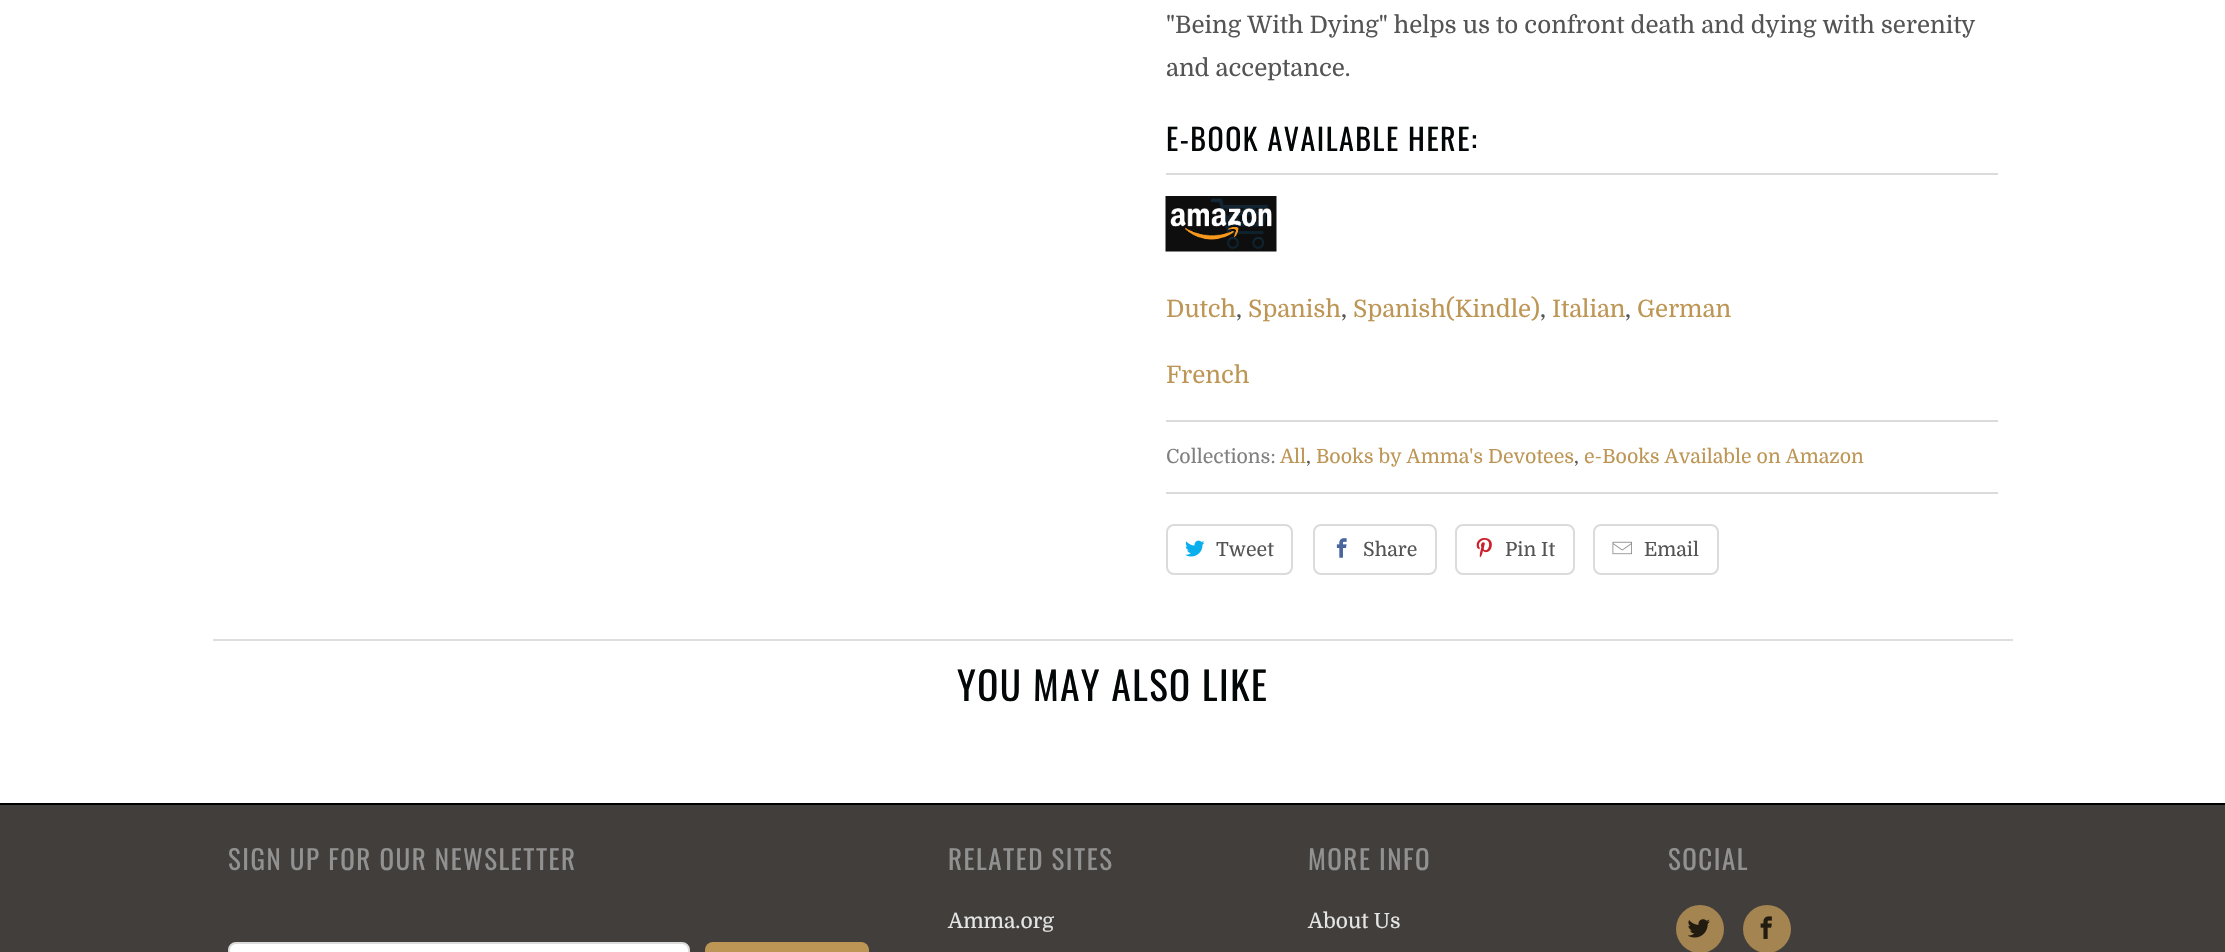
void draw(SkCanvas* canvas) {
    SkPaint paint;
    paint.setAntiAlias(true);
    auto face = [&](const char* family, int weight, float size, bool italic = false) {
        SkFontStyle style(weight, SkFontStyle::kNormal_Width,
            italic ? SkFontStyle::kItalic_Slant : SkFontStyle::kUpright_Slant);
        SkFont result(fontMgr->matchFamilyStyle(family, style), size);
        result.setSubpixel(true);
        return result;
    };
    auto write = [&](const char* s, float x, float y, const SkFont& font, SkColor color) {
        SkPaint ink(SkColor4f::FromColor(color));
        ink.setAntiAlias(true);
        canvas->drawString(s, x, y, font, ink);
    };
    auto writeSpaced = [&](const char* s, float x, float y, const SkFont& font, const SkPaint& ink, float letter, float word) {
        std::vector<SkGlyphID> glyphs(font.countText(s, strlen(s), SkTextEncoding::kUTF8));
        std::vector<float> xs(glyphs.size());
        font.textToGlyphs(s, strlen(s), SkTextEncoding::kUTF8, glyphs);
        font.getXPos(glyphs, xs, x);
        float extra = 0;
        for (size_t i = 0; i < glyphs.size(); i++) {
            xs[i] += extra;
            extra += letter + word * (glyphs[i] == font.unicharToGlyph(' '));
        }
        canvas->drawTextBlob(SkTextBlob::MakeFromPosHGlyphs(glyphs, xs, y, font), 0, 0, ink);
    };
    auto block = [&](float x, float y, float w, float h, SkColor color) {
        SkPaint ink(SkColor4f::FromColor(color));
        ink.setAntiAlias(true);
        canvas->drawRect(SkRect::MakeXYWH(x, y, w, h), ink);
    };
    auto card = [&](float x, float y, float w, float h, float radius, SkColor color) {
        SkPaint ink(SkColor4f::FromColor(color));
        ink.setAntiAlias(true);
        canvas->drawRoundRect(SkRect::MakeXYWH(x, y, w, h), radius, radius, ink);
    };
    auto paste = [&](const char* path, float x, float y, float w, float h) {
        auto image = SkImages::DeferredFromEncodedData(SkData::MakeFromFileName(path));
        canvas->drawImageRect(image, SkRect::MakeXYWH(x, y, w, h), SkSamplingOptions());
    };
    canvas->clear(SK_ColorWHITE);
    auto kFont1 = face("Domine", 400, 24);
    write("\"Being With Dying\" helps us to confront death and dying with serenity", 1166, 33, kFont1, SkColorSetRGB(84, 84, 84));
    write("and acceptance.", 1166, 76, kFont1, SkColorSetRGB(84, 84, 84));
    block(1166, 173, 832, 2, SkColorSetRGB(219, 219, 219));
    auto kFont2 = face("Oswald", 400, 30);
    paint.setColor(SkColorSetRGB(4, 7, 7));
    writeSpaced("E-BOOK AVAILABLE HERE:", 1166, 151, kFont2, paint, 1.5f, 0);
    paste("pic1.png", 1165, 196, 112, 56);
    write("Dutch", 1166, 317, kFont1, SkColorSetRGB(189, 150, 85));
    write(",", 1236, 317, kFont1, SkColorSetRGB(84, 84, 84));
    write("Spanish", 1248, 317, kFont1, SkColorSetRGB(189, 150, 85));
    write(",", 1341, 317, kFont1, SkColorSetRGB(84, 84, 84));
    write("Spanish(Kindle)", 1353, 317, kFont1, SkColorSetRGB(189, 150, 85));
    write(",", 1540, 317, kFont1, SkColorSetRGB(84, 84, 84));
    write("Italian", 1552, 317, kFont1, SkColorSetRGB(189, 150, 85));
    write(",", 1625, 317, kFont1, SkColorSetRGB(84, 84, 84));
    write("German", 1637, 317, kFont1, SkColorSetRGB(189, 150, 85));
    write("French", 1166, 383, kFont1, SkColorSetRGB(189, 150, 85));
    block(1166, 420, 832, 2, SkColorSetRGB(219, 219, 219));
    auto kFont3 = face("Domine", 400, 19.5f);
    write("Collections:", 1166, 463, kFont3, SkColorSetRGB(128, 128, 128));
    write("All", 1280, 463, kFont3, SkColorSetRGB(189, 150, 85));
    write(",", 1306, 463, kFont3, SkColorSetRGB(84, 84, 84));
    write("Books by Amma's Devotees", 1316, 463, kFont3, SkColorSetRGB(189, 150, 85));
    write(",", 1574, 463, kFont3, SkColorSetRGB(84, 84, 84));
    write("e-Books Available on Amazon", 1584, 463, kFont3, SkColorSetRGB(189, 150, 85));
    block(1166, 492, 832, 2, SkColorSetRGB(219, 219, 219));
    paint.setStyle(SkPaint::kStroke_Style);
    paint.setStrokeWidth(2);
    paint.setColor(SkColorSetRGB(219, 219, 219));
    canvas->drawRoundRect(SkRect::MakeXYWH(1167, 525, 125, 49), 7, 7, paint);
    paste("pic2.png", 1185, 540, 20, 17);
    write("Tweet", 1216, 556, kFont3, SkColorSetRGB(84, 84, 84));
    canvas->drawRoundRect(SkRect::MakeXYWH(1314, 525, 122, 49), 7, 7, paint);
    paste("pic3.png", 1336, 538, 11, 20);
    write("Share", 1363, 556, kFont3, SkColorSetRGB(84, 84, 84));
    canvas->drawRoundRect(SkRect::MakeXYWH(1456, 525, 118, 49), 7, 7, paint);
    paste("pic4.png", 1476, 538, 16, 20);
    write("Pin It", 1505, 556, kFont3, SkColorSetRGB(84, 84, 84));
    canvas->drawRoundRect(SkRect::MakeXYWH(1594, 525, 124, 49), 7, 7, paint);
    paste("pic5.png", 1612, 541, 20, 14);
    write("Email", 1644, 556, kFont3, SkColorSetRGB(84, 84, 84));
    block(213, 639, 1800, 2, SkColorSetRGB(222, 222, 222));
    auto kFont4 = face("Oswald", 400, 39);
    paint.setStyle(SkPaint::kFill_Style);
    paint.setColor(SkColorSetRGB(4, 7, 7));
    writeSpaced("YOU MAY ALSO LIKE", 957, 701, kFont4, paint, 1.5f, 0);
    block(0, 805, 2225, 147, SkColorSetRGB(65, 62, 59));
    block(0, 803, 2225, 2, SK_ColorBLACK);
    auto kFont5 = face("Oswald", 400, 27);
    paint.setColor(SkColorSetRGB(146, 145, 145));
    writeSpaced("SIGN UP FOR OUR NEWSLETTER", 228, 870, kFont5, paint, 1.5f, 0);
    paint.setColor(SK_ColorWHITE);
    canvas->drawRoundRect(SkRect::MakeXYWH(229, 943, 460, 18), 7, 7, paint);
    paint.setStyle(SkPaint::kStroke_Style);
    paint.setColor(SkColorSetRGB(219, 219, 219));
    canvas->drawRoundRect(SkRect::MakeXYWH(229, 943, 460, 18), 7, 7, paint);
    card(705, 942, 164, 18, 8, SkColorSetRGB(189, 150, 85));
    paint.setStyle(SkPaint::kFill_Style);
    paint.setColor(SkColorSetRGB(146, 145, 145));
    writeSpaced("RELATED SITES", 948, 870, kFont5, paint, 1.5f, 0);
    auto kFont6 = face("Domine", 400, 21);
    write("Amma.org", 948, 928, kFont6, SkColorSetRGB(229, 229, 229));
    writeSpaced("MORE INFO", 1308, 870, kFont5, paint, 1.5f, 0);
    write("About Us", 1308, 928, kFont6, SkColorSetRGB(229, 229, 229));
    writeSpaced("SOCIAL", 1668, 870, kFont5, paint, 1.5f, 0);
    paint.setColor(SkColorSetRGB(164, 132, 80));
    canvas->drawCircle(1700, 929, 24, paint);
    paste("pic6.png", 1687, 919, 23, 19);
    canvas->drawCircle(1767, 929, 24, paint);
    paste("pic7.png", 1760, 916, 12, 23);
}
